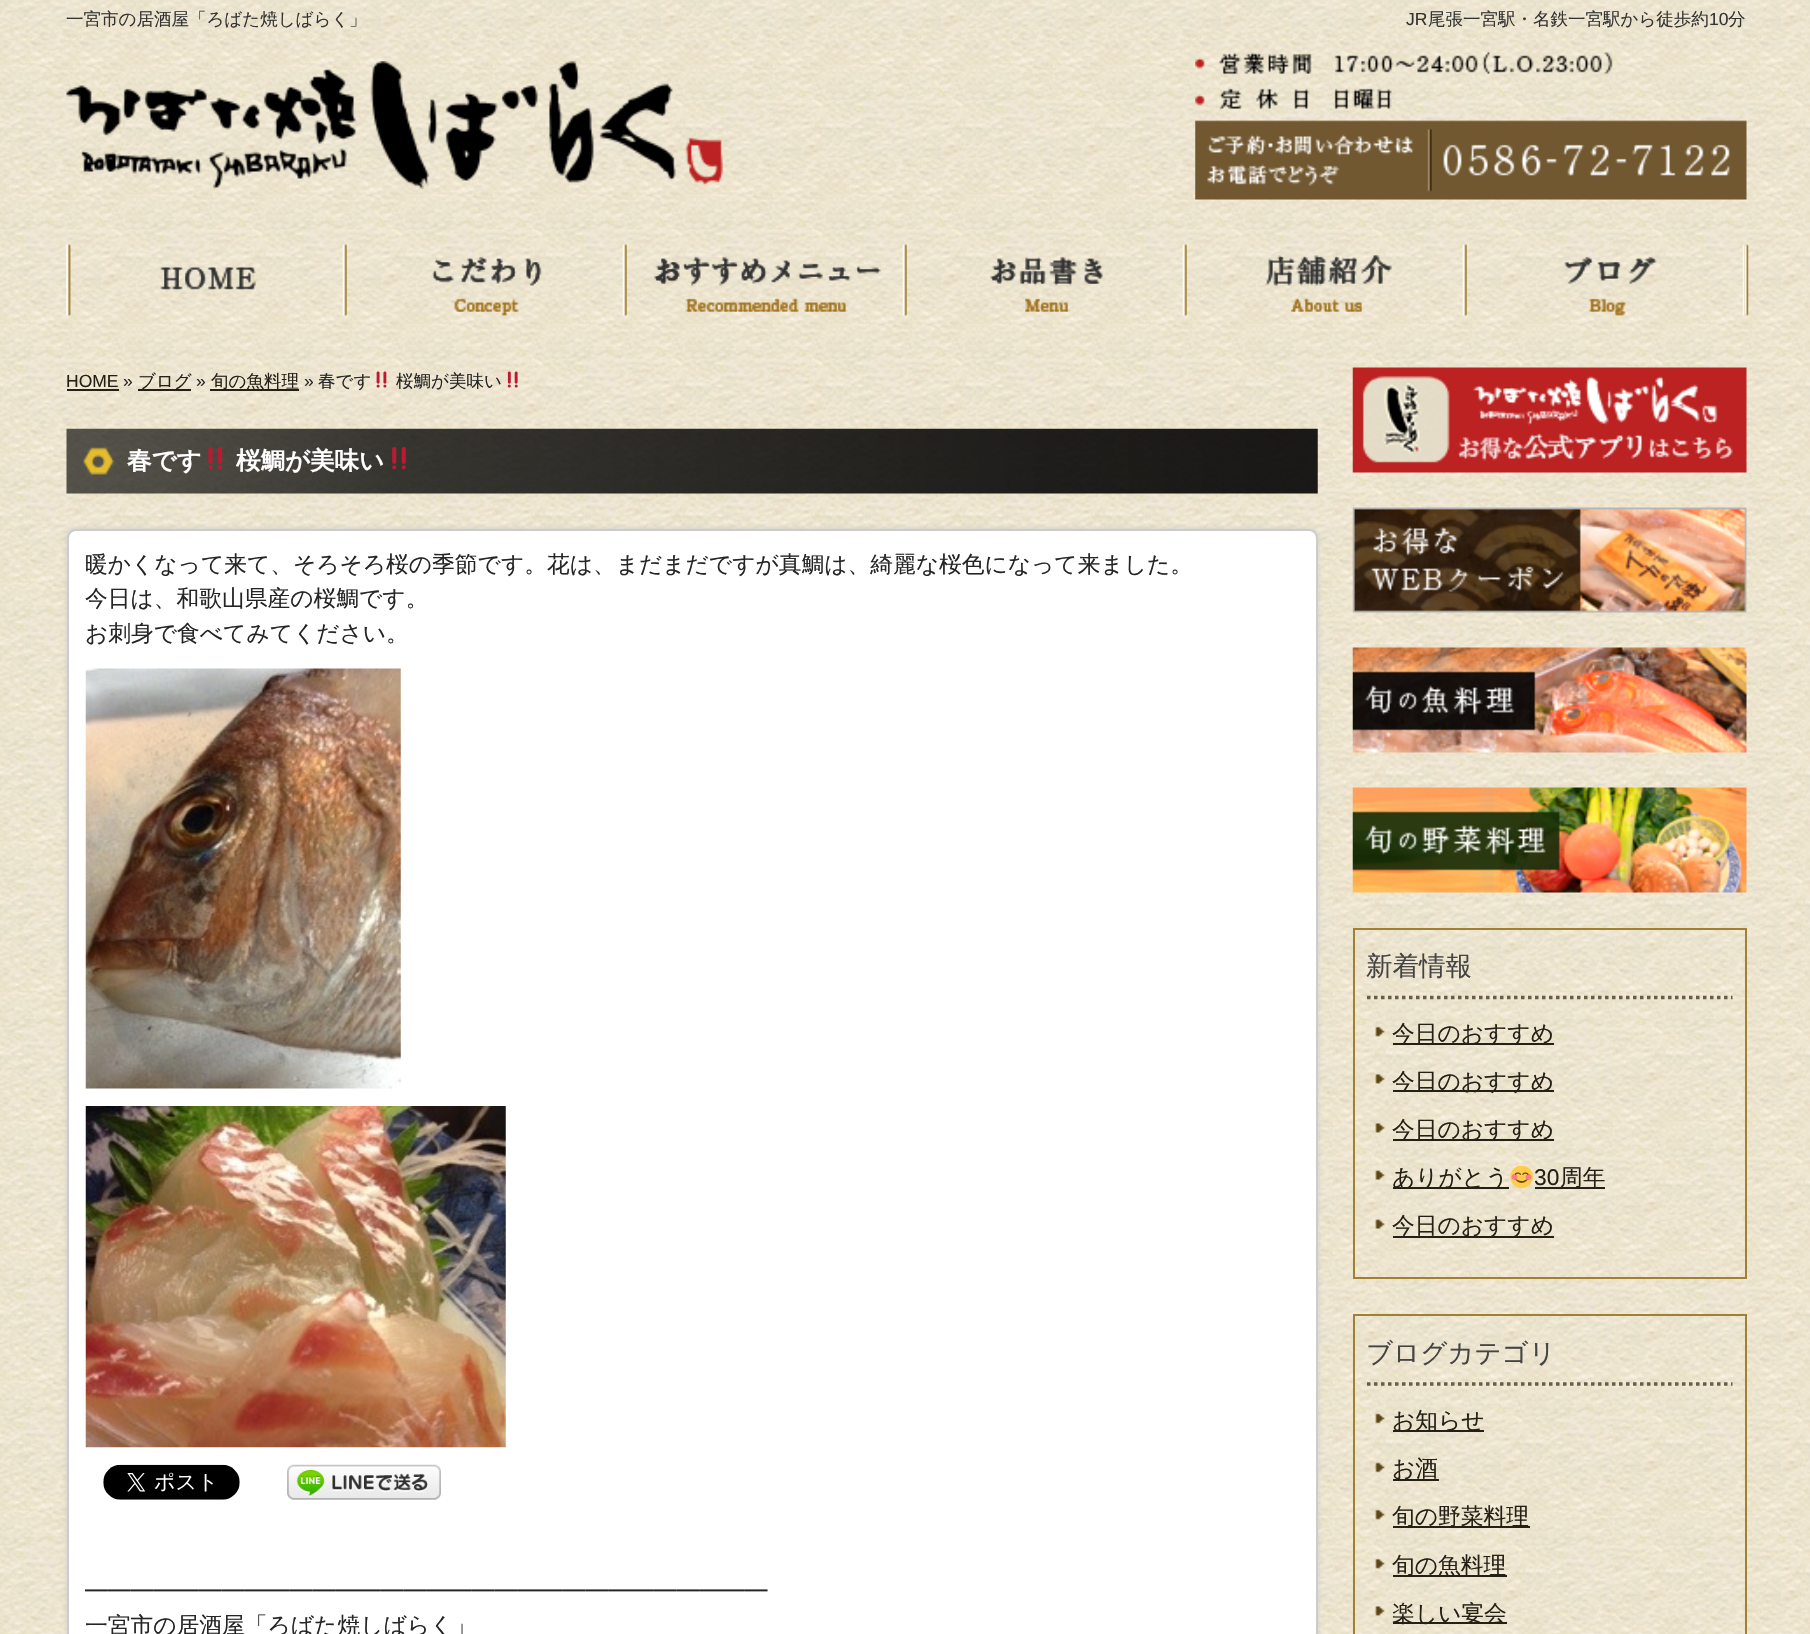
void draw(SkCanvas* canvas) {
    SkPaint paint;
    paint.setAntiAlias(true);
    auto face = [&](const char* family, int weight, float size, bool italic = false) {
        SkFontStyle style(weight, SkFontStyle::kNormal_Width,
            italic ? SkFontStyle::kItalic_Slant : SkFontStyle::kUpright_Slant);
        SkFont result(fontMgr->matchFamilyStyle(family, style), size);
        result.setSubpixel(true);
        return result;
    };
    auto write = [&](const char* s, float x, float y, const SkFont& font, SkColor color) {
        SkPaint ink(SkColor4f::FromColor(color));
        ink.setAntiAlias(true);
        canvas->drawString(s, x, y, font, ink);
    };
    auto block = [&](float x, float y, float w, float h, SkColor color) {
        SkPaint ink(SkColor4f::FromColor(color));
        ink.setAntiAlias(true);
        canvas->drawRect(SkRect::MakeXYWH(x, y, w, h), ink);
    };
    auto paste = [&](const char* path, float x, float y, float w, float h) {
        auto image = SkImages::DeferredFromEncodedData(SkData::MakeFromFileName(path));
        canvas->drawImageRect(image, SkRect::MakeXYWH(x, y, w, h), SkSamplingOptions());
    };
    canvas->clear(SK_ColorWHITE);
    paste("pic1.png", 0, 0, 1810, 1634);
    auto kFont1 = face("WenQuanYi Zen Hei", 500, 17.5f);
    write("一宮市の居酒屋「ろばた焼しばらく」", 66, 25, kFont1, SkColorSetRGB(51, 51, 51));
    auto kFont2 = face("Liberation Sans", 400, 17.5f);
    write("JR", 1406, 25, kFont2, SkColorSetRGB(51, 51, 51));
    write("尾張一宮駅・名鉄一宮駅から徒歩約", 1428, 25, kFont1, SkColorSetRGB(51, 51, 51));
    write("10", 1709, 25, kFont2, SkColorSetRGB(51, 51, 51));
    write("分", 1728, 25, kFont1, SkColorSetRGB(51, 51, 51));
    paste("pic2.png", 66, 61, 657, 128);
    paste("pic3.png", 1195, 52, 552, 148);
    paste("pic4.png", 66, 244, 1681, 72);
    paste("pic5.png", 66, 244, 281, 72);
    paste("pic6.png", 432, 244, 248, 72);
    paste("pic7.png", 654, 244, 253, 72);
    paste("pic8.png", 990, 244, 197, 72);
    paste("pic9.png", 1265, 244, 202, 72);
    paste("pic10.png", 1564, 244, 185, 72);
    write("HOME", 66, 387, kFont2, SkColorSetRGB(36, 32, 22));
    block(67, 389, 52, 2, SkColorSetRGB(36, 32, 22));
    write("»", 123, 387, kFont2, SkColorSetRGB(37, 37, 37));
    block(138, 389, 53, 2, SkColorSetRGB(36, 32, 22));
    write("ブログ", 138, 387, kFont1, SkColorSetRGB(36, 32, 22));
    write("»", 196, 387, kFont2, SkColorSetRGB(37, 37, 37));
    block(210, 389, 89, 2, SkColorSetRGB(36, 32, 22));
    write("旬の魚料理", 211, 387, kFont1, SkColorSetRGB(36, 32, 22));
    write("»", 304, 387, kFont2, SkColorSetRGB(37, 37, 37));
    write("春です", 318, 387, kFont1, SkColorSetRGB(37, 37, 37));
    paste("pic11.png", 376, 371, 11, 17);
    write("桜鯛が美味い", 396, 387, kFont1, SkColorSetRGB(37, 37, 37));
    paste("pic12.png", 507, 371, 11, 17);
    paste("pic13.png", 66, 428, 1252, 66);
    auto kFont3 = face("WenQuanYi Zen Hei", 700, 24.5f);
    write("春です", 127, 469, kFont3, SK_ColorWHITE);
    paste("pic14.png", 208, 447, 15, 23);
    write("桜鯛が美味い", 236, 469, kFont3, SK_ColorWHITE);
    paste("pic15.png", 392, 447, 14, 23);
    paint.setColor(SkColorSetRGB(204, 204, 204));
    paint.setMaskFilter(SkMaskFilter::MakeBlur(kNormal_SkBlurStyle, 2.5f));
    canvas->drawRoundRect(SkRect::MakeXYWH(67, 529, 1251, 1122), 9, 9, paint);
    paint.setMaskFilter(nullptr);
    paint.setColor(SK_ColorWHITE);
    canvas->drawRoundRect(SkRect::MakeXYWH(68, 530, 1249, 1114), 8, 8, paint);
    paint.setStyle(SkPaint::kStroke_Style);
    paint.setStrokeWidth(2);
    paint.setColor(SkColorSetRGB(204, 204, 204));
    canvas->drawRoundRect(SkRect::MakeXYWH(68, 530, 1249, 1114), 8, 8, paint);
    auto kFont4 = face("WenQuanYi Zen Hei", 500, 22.75f);
    write("暖かくなって来て、そろそろ桜の季節です。花は、まだまだですが真鯛は、綺麗な桜色になって来ました。", 85, 572, kFont4, SkColorSetRGB(37, 37, 37));
    write("今日は、和歌山県産の桜鯛です。", 85, 606, kFont4, SkColorSetRGB(37, 37, 37));
    write("お刺身で食べてみてください。", 85, 641, kFont4, SkColorSetRGB(37, 37, 37));
    paste("pic16.png", 85, 668, 316, 421);
    paste("pic17.png", 85, 1106, 421, 342);
    paste("pic18.png", 103, 1464, 137, 36);
    paste("pic19.png", 287, 1464, 154, 36);
    write("━━━━━━━━━━━━━━━━━━━━━━━━━━━━━━", 85, 1599, kFont4, SkColorSetRGB(37, 37, 37));
    write("一宮市の居酒屋「ろばた焼しばらく」", 85, 1633, kFont4, SkColorSetRGB(37, 37, 37));
    paste("pic20.png", 1352, 367, 395, 106);
    paste("pic21.png", 1352, 507, 395, 106);
    paste("pic22.png", 1352, 647, 395, 106);
    paste("pic23.png", 1352, 787, 395, 106);
    paint.setColor(SkColorSetRGB(162, 128, 50));
    canvas->drawRect(SkRect::MakeXYWH(1354, 929, 392, 349), paint);
    paint.setStrokeWidth(3.5f);
    paint.setColor(SkColorSetRGB(103, 93, 72));
    paint.setPathEffect(SkDashPathEffect::Make({{3.5f, 3.5f}}, 0));
    canvas->drawPath(SkPathBuilder().moveTo(1367, 997.5f).lineTo(1732.5f, 997.5f).detach(), paint);
    paint.setPathEffect(nullptr);
    auto kFont5 = face("WenQuanYi Zen Hei", 500, 26.5f);
    write("新着情報", 1366, 975, kFont5, SkColorSetRGB(68, 68, 68));
    paste("pic24.png", 1375, 1026, 10, 11);
    block(1393, 1043, 161, 2, SkColorSetRGB(36, 32, 22));
    write("今日のおすすめ", 1392, 1041, kFont4, SkColorSetRGB(36, 32, 22));
    paste("pic25.png", 1375, 1074, 10, 10);
    block(1393, 1090, 161, 2, SkColorSetRGB(36, 32, 22));
    write("今日のおすすめ", 1392, 1089, kFont4, SkColorSetRGB(36, 32, 22));
    paste("pic26.png", 1375, 1123, 10, 10);
    block(1393, 1139, 161, 2, SkColorSetRGB(36, 32, 22));
    write("今日のおすすめ", 1392, 1137, kFont4, SkColorSetRGB(36, 32, 22));
    paste("pic27.png", 1375, 1170, 10, 10);
    block(1393, 1187, 116, 2, SkColorSetRGB(36, 32, 22));
    write("ありがとう", 1392, 1185, kFont4, SkColorSetRGB(36, 32, 22));
    paste("pic28.png", 1510, 1166, 23, 22);
    auto kFont6 = face("Liberation Sans", 400, 22.75f);
    write("30", 1534, 1185, kFont6, SkColorSetRGB(36, 32, 22));
    block(1535, 1187, 70, 2, SkColorSetRGB(36, 32, 22));
    write("周年", 1560, 1185, kFont4, SkColorSetRGB(36, 32, 22));
    paste("pic29.png", 1375, 1219, 10, 10);
    block(1393, 1236, 161, 2, SkColorSetRGB(36, 32, 22));
    write("今日のおすすめ", 1392, 1233, kFont4, SkColorSetRGB(36, 32, 22));
    paint.setStrokeWidth(2);
    paint.setColor(SkColorSetRGB(162, 128, 50));
    canvas->drawRect(SkRect::MakeXYWH(1354, 1315, 392, 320), paint);
    paint.setStrokeWidth(3.5f);
    paint.setColor(SkColorSetRGB(103, 93, 72));
    paint.setPathEffect(SkDashPathEffect::Make({{3.5f, 3.5f}}, 0));
    canvas->drawPath(SkPathBuilder().moveTo(1367, 1384).lineTo(1732.5f, 1384).detach(), paint);
    paint.setPathEffect(nullptr);
    write("ブログカテゴリ", 1366, 1362, kFont5, SkColorSetRGB(68, 68, 68));
    paste("pic30.png", 1375, 1413, 10, 11);
    block(1393, 1430, 91, 2, SkColorSetRGB(36, 32, 22));
    write("お知らせ", 1392, 1428, kFont4, SkColorSetRGB(36, 32, 22));
    paste("pic31.png", 1375, 1462, 10, 11);
    block(1393, 1479, 46, 2, SkColorSetRGB(36, 32, 22));
    write("お酒", 1392, 1476, kFont4, SkColorSetRGB(36, 32, 22));
    paste("pic32.png", 1375, 1509, 10, 11);
    block(1393, 1526, 137, 2, SkColorSetRGB(36, 32, 22));
    write("旬の野菜料理", 1392, 1524, kFont4, SkColorSetRGB(36, 32, 22));
    paste("pic33.png", 1375, 1558, 10, 11);
    block(1393, 1575, 114, 2, SkColorSetRGB(36, 32, 22));
    write("旬の魚料理", 1392, 1573, kFont4, SkColorSetRGB(36, 32, 22));
    paste("pic34.png", 1375, 1606, 10, 10);
    block(1393, 1622, 114, 2, SkColorSetRGB(36, 32, 22));
    write("楽しい宴会", 1392, 1621, kFont4, SkColorSetRGB(36, 32, 22));
}
